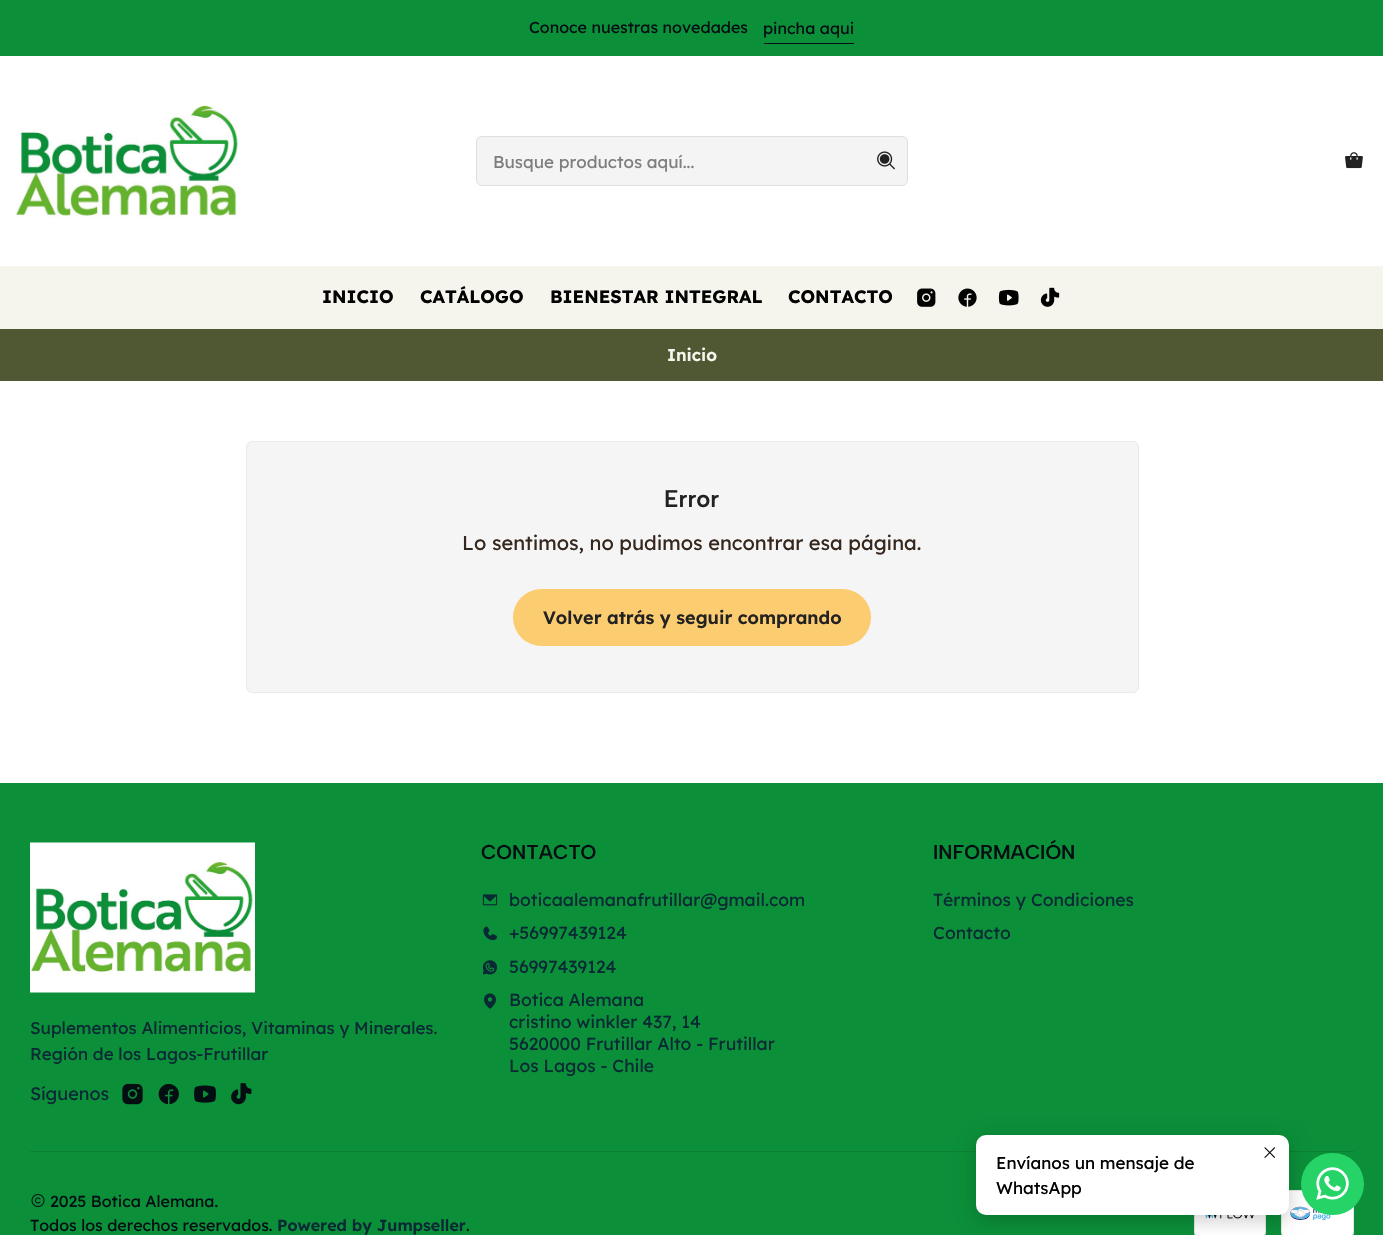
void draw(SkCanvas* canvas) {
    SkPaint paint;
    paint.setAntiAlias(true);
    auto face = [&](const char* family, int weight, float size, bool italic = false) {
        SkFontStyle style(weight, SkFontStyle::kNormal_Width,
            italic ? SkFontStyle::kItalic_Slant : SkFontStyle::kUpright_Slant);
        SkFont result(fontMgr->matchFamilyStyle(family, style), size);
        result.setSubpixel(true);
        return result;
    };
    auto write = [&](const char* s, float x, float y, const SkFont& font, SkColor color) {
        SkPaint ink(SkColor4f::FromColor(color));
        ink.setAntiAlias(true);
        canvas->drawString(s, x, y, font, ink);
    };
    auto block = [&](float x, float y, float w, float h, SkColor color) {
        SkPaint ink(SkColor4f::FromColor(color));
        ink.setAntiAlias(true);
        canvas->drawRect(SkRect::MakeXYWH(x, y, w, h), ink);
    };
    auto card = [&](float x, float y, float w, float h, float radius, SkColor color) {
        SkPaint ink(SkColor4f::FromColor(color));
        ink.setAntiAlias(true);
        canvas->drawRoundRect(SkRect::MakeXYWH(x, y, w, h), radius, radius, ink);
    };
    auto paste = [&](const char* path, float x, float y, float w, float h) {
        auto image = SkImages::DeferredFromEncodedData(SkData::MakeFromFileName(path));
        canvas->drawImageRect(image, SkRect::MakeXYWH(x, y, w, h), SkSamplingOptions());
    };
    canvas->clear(SK_ColorWHITE);
    block(0, 0, 1383, 56, SkColorSetRGB(11, 143, 57));
    auto kFont1 = face("Lexend", 400, 16);
    write("Conoce nuestras novedades", 529, 33, kFont1, SkColorSetRGB(3, 14, 18));
    block(764, 43, 90, 1, SkColorSetRGB(3, 14, 18));
    write("pincha aqui", 763, 34, kFont1, SkColorSetRGB(3, 14, 18));
    paste("pic1.png", 15, 105, 223, 113);
    paint.setColor(SkColorSetRGB(244, 244, 244));
    canvas->drawRoundRect(SkRect::MakeXYWH(476.5f, 136.5f, 431, 49), 5.5f, 5.5f, paint);
    paint.setStyle(SkPaint::kStroke_Style);
    paint.setStrokeWidth(1);
    paint.setColor(SkColorSetRGB(223, 223, 223));
    canvas->drawRoundRect(SkRect::MakeXYWH(476.5f, 136.5f, 431, 49), 5.5f, 5.5f, paint);
    auto kFont2 = face("Lexend", 400, 17);
    write("Busque productos aquí...", 493, 168, kFont2, SkColorSetRGB(126, 126, 126));
    paste("pic2.png", 877, 151, 18, 19);
    paste("pic3.png", 1345, 152, 18, 17);
    block(0, 266, 1383, 63, SkColorSetRGB(245, 244, 237));
    auto kFont3 = face("Lexend", 700, 18);
    write("INICIO", 322, 303, kFont3, SkColorSetRGB(2, 2, 2));
    write("CATÁLOGO", 420, 303, kFont3, SkColorSetRGB(2, 2, 2));
    write("BIENESTAR INTEGRAL", 550, 303, kFont3, SkColorSetRGB(2, 2, 2));
    write("CONTACTO", 788, 303, kFont3, SkColorSetRGB(2, 2, 2));
    paste("pic4.png", 917, 288, 19, 19);
    paste("pic5.png", 958, 288, 19, 19);
    paste("pic6.png", 998, 289, 21, 17);
    paste("pic7.png", 1040, 287, 20, 20);
    block(0, 329, 1383, 52, SkColorSetRGB(79, 88, 50));
    auto kFont4 = face("Lexend", 600, 17);
    write("Inicio", 667, 361, kFont4, SkColorSetRGB(245, 244, 237));
    paint.setStyle(SkPaint::kFill_Style);
    paint.setColor(SkColorSetRGB(245, 245, 245));
    canvas->drawRoundRect(SkRect::MakeXYWH(246.5f, 441.5f, 892, 251), 5.5f, 5.5f, paint);
    paint.setStyle(SkPaint::kStroke_Style);
    paint.setColor(SkColorSetRGB(234, 234, 234));
    canvas->drawRoundRect(SkRect::MakeXYWH(246.5f, 441.5f, 892, 251), 5.5f, 5.5f, paint);
    auto kFont5 = face("Albert Sans", 600, 24);
    write("Error", 664, 507, kFont5, SkColorSetRGB(34, 34, 34));
    auto kFont6 = face("Lexend", 400, 20);
    write("Lo sentimos, no pudimos encontrar esa página.", 462, 550, kFont6, SkColorSetRGB(53, 39, 29));
    card(513, 589, 358, 57, 28.5f, SkColorSetRGB(251, 204, 112));
    auto kFont7 = face("Lexend", 600, 18);
    write("Volver atrás y seguir comprando", 543, 624, kFont7, SkColorSetRGB(34, 34, 34));
    block(0, 783, 1383, 452, SkColorSetRGB(11, 143, 57));
    paste("pic8.png", 30, 842, 225, 151);
    write("Suplementos Alimenticios, Vitaminas y Minerales.", 30, 1034, kFont2, SkColorSetRGB(9, 41, 52));
    write("Región de los Lagos-Frutillar", 30, 1060, kFont2, SkColorSetRGB(9, 41, 52));
    auto kFont8 = face("Lexend", 400, 18);
    write("Síguenos", 30, 1100, kFont8, SkColorSetRGB(9, 41, 52));
    paste("pic9.png", 122, 1083, 21, 22);
    paste("pic10.png", 158, 1083, 21, 22);
    paste("pic11.png", 194, 1085, 22, 18);
    paste("pic12.png", 231, 1083, 21, 22);
    auto kFont9 = face("Albert Sans", 600, 20);
    write("CONTACTO", 481, 859, kFont9, SkColorSetRGB(3, 14, 18));
    paste("pic13.png", 482, 894, 16, 12);
    auto kFont10 = face("Lexend", 400, 17.5f);
    write("boticaalemanafrutillar@gmail.com", 509, 906, kFont10, SkColorSetRGB(9, 41, 52));
    paste("pic14.png", 483, 926, 15, 15);
    write("+56997439124", 509, 939, kFont10, SkColorSetRGB(9, 41, 52));
    paste("pic15.png", 482, 960, 16, 15);
    write("56997439124", 509, 973, kFont10, SkColorSetRGB(9, 41, 52));
    paste("pic16.png", 484, 993, 12, 16);
    write("Botica Alemana", 509, 1006, kFont10, SkColorSetRGB(9, 41, 52));
    write("cristino winkler 437, 14", 509, 1028, kFont10, SkColorSetRGB(9, 41, 52));
    write("5620000 Frutillar Alto - Frutillar", 509, 1050, kFont10, SkColorSetRGB(9, 41, 52));
    write("Los Lagos - Chile", 509, 1072, kFont10, SkColorSetRGB(9, 41, 52));
    write("INFORMACIÓN", 933, 859, kFont9, SkColorSetRGB(3, 14, 18));
    write("Términos y Condiciones", 933, 906, kFont10, SkColorSetRGB(9, 41, 52));
    write("Contacto", 933, 939, kFont10, SkColorSetRGB(9, 41, 52));
    block(30, 1151, 1324, 1, SkColorSetRGB(10, 130, 53));
    paste("pic17.png", 31, 1194, 14, 13);
    write("2025 Botica Alemana.", 50, 1207, kFont1, SkColorSetRGB(3, 14, 18));
    write("Todos los derechos reservados.", 30, 1231, kFont1, SkColorSetRGB(3, 14, 18));
    auto kFont11 = face("Lexend", 600, 16);
    write("Powered by Jumpseller", 277, 1231, kFont11, SkColorSetRGB(9, 41, 52));
    write(".", 466, 1231, kFont1, SkColorSetRGB(3, 14, 18));
    card(1194, 1190, 72, 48, 6, SK_ColorWHITE);
    paint.setColor(SkColorSetARGB(26, 3, 14, 18));
    canvas->drawRoundRect(SkRect::MakeXYWH(1194.5f, 1190.5f, 71, 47), 5.5f, 5.5f, paint);
    paste("pic18.png", 1203, 1215, 53, 4);
    card(1281, 1190, 73, 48, 6, SK_ColorWHITE);
    canvas->drawRoundRect(SkRect::MakeXYWH(1281.5f, 1190.5f, 72, 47), 5.5f, 5.5f, paint);
    paste("pic19.png", 1290, 1206, 55, 15);
    paint.setStyle(SkPaint::kFill_Style);
    paint.setColor(SkColorSetARGB(51, 0, 0, 0));
    paint.setMaskFilter(SkMaskFilter::MakeBlur(kNormal_SkBlurStyle, 9.5f));
    canvas->drawRoundRect(SkRect::MakeXYWH(976, 1140, 313, 80), 10, 10, paint);
    paint.setMaskFilter(nullptr);
    card(976, 1135, 313, 80, 10, SK_ColorWHITE);
    paste("pic20.png", 1264, 1147, 11, 11);
    write("Envíanos un mensaje de", 996, 1169, kFont2, SkColorSetRGB(2, 2, 2));
    write("WhatsApp", 996, 1194, kFont2, SkColorSetRGB(2, 2, 2));
    card(1301, 1153, 63, 62, 31, SkColorSetRGB(37, 211, 102));
    paste("pic21.png", 1316, 1167, 33, 33);
}
